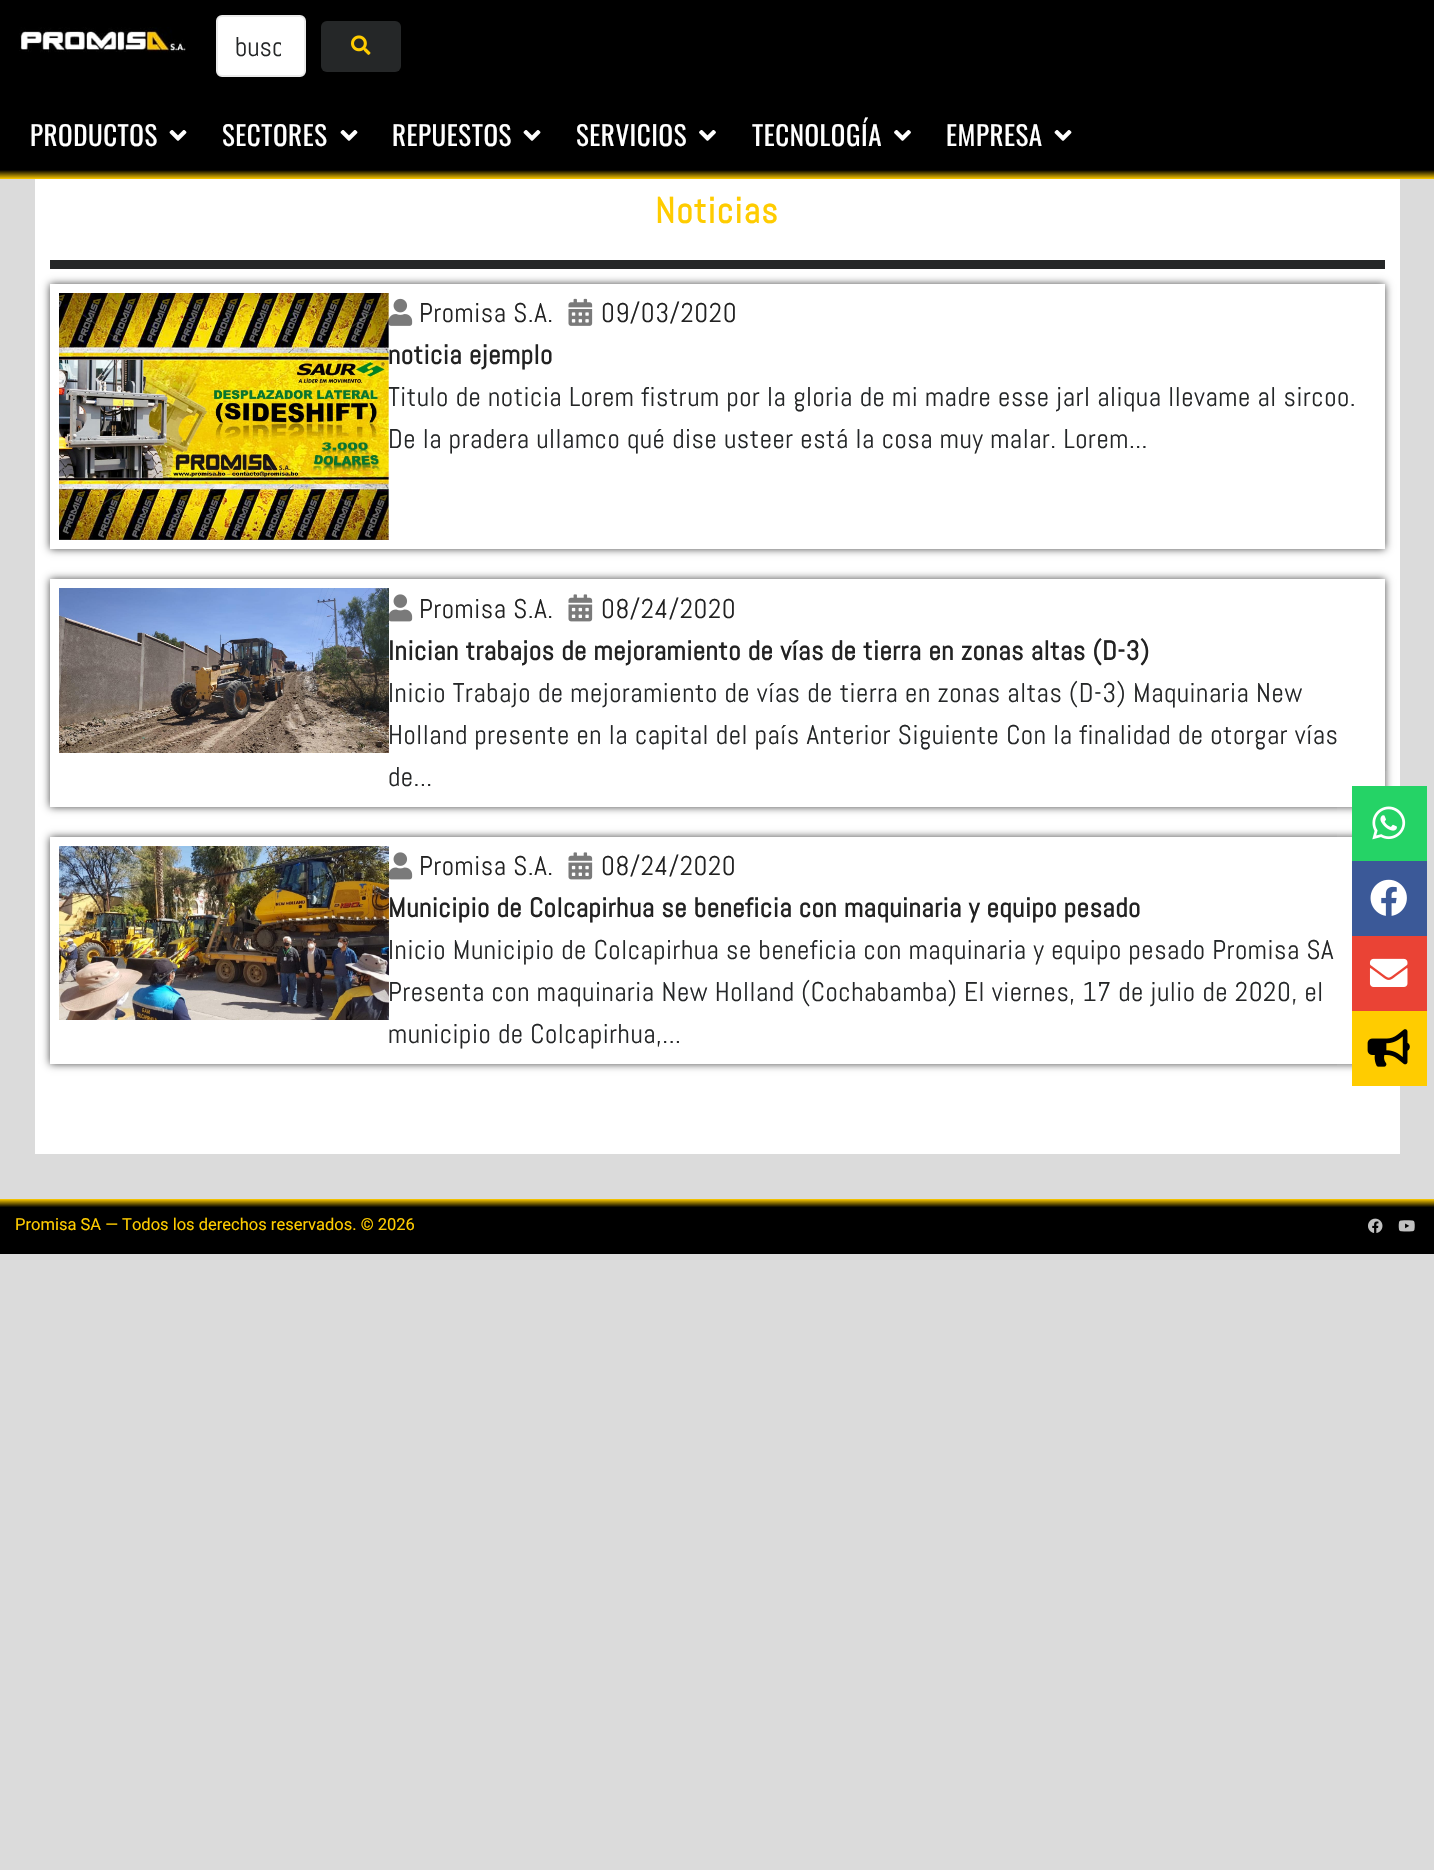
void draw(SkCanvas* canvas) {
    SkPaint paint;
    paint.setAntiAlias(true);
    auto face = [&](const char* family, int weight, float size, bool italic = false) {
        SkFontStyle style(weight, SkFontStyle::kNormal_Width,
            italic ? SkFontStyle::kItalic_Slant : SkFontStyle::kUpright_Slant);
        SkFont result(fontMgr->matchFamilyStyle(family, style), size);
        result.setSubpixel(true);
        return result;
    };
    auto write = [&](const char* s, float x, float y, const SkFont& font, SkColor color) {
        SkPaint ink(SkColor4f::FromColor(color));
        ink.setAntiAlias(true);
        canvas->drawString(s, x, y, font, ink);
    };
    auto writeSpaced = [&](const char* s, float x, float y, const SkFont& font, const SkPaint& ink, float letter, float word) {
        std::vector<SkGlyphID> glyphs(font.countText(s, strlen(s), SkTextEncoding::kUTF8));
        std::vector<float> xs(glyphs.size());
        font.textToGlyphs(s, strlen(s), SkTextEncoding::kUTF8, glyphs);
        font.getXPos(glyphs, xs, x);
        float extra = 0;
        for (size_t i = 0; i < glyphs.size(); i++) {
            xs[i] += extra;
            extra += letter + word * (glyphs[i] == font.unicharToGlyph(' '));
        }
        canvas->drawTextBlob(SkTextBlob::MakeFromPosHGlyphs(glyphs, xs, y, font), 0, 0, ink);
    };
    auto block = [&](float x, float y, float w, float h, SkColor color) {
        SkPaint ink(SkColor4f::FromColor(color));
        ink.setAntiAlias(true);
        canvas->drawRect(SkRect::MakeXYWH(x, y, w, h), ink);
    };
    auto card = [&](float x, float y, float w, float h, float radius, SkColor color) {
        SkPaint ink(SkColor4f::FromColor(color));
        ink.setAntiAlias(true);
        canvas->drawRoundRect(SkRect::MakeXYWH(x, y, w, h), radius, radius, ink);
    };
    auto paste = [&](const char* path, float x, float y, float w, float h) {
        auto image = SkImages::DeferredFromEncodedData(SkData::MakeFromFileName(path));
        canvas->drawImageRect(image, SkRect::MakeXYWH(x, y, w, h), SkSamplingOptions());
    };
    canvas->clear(SkColorSetRGB(219, 219, 219));
    {
        const SkColor colors[] = {SK_ColorBLACK, SkColorSetRGB(254, 203, 0)};
        const float stops[] = {0.95f, 1};
        const SkPoint ends[] = {{717, 0}, {717, 179}};
        paint.setShader(SkGradientShader::MakeLinear(ends, colors, stops, 2, SkTileMode::kClamp));
        paint.setAlpha(255);
    }
    canvas->drawRect(SkRect::MakeXYWH(0, 0, 1434, 179), paint);
    paste("pic1.png", 19, 27, 167, 26);
    paint.setShader(nullptr);
    paint.setColor(SK_ColorWHITE);
    canvas->drawRoundRect(SkRect::MakeXYWH(217, 16, 88, 60), 5, 5, paint);
    paint.setStyle(SkPaint::kStroke_Style);
    paint.setStrokeWidth(2);
    paint.setColor(SkColorSetRGB(235, 235, 235));
    canvas->drawRoundRect(SkRect::MakeXYWH(217, 16, 88, 60), 5, 5, paint);
    canvas->save();
    canvas->clipRect(SkRect::MakeXYWH(236, 29, 45, 34));
    auto kFont1 = face("Abel", 400, 27);
    write("busc", 235, 56, kFont1, SkColorSetRGB(37, 39, 40));
    canvas->restore();
    card(321, 21, 80, 51, 6, SkColorSetRGB(37, 39, 40));
    paste("pic2.png", 351, 35, 20, 20);
    auto kFont2 = face("Oswald", 400, 27);
    paint.setStyle(SkPaint::kFill_Style);
    paint.setColor(SK_ColorWHITE);
    writeSpaced("PRODUCTOS", 30, 146, kFont2, paint, 0.55f, 0);
    paste("pic3.png", 169, 130, 18, 11);
    writeSpaced("SECTORES", 222, 146, kFont2, paint, 0.55f, 0);
    paste("pic3.png", 340, 130, 18, 11);
    writeSpaced("REPUESTOS", 392, 146, kFont2, paint, 0.55f, 0);
    paste("pic3.png", 523, 130, 18, 11);
    writeSpaced("SERVICIOS", 576, 146, kFont2, paint, 0.55f, 0);
    paste("pic4.png", 699, 130, 17, 11);
    writeSpaced("TECNOLOGÍA", 752, 146, kFont2, paint, 0.55f, 0);
    paste("pic4.png", 894, 130, 17, 11);
    writeSpaced("EMPRESA", 946, 146, kFont2, paint, 0.55f, 0);
    paste("pic3.png", 1054, 130, 18, 11);
    block(35, 179, 1365, 975, SK_ColorWHITE);
    auto kFont3 = face("Abel", 700, 36);
    paint.setColor(SkColorSetRGB(255, 204, 0));
    writeSpaced("Noticias", 655, 223, kFont3, paint, 1.25f, 0);
    block(50, 260, 1335, 9, SkColorSetRGB(37, 39, 40));
    canvas->save();
    canvas->clipPath(SkPathBuilder(SkPathFillType::kEvenOdd).moveTo(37, 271).lineTo(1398, 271).lineTo(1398, 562).lineTo(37, 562).close().moveTo(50, 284).lineTo(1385, 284).lineTo(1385, 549).lineTo(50, 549).close().detach(), true);
    paint.setColor(SkColorSetARGB(184, 0, 0, 0));
    paint.setMaskFilter(SkMaskFilter::MakeBlur(kNormal_SkBlurStyle, 4));
    canvas->drawRect(SkRect::MakeXYWH(50, 284, 1335, 265), paint);
    paint.setMaskFilter(nullptr);
    canvas->restore();
    paste("pic6.png", 388, 298, 25, 28);
    paint.setColor(SkColorSetRGB(37, 39, 40));
    writeSpaced("Titulo de noticia Lorem fistrum por la gloria de mi madre esse jarl aliqua llevame al sircoo.", 388, 406, kFont1, paint, 0.55f, 0);
    paste("pic5.png", 59, 293, 330, 247);
    paint.setColor(SkColorSetRGB(34, 34, 34));
    writeSpaced("Promisa S.A.", 419, 322, kFont1, paint, 0.55f, 0);
    paste("pic7.png", 568, 298, 25, 28);
    writeSpaced("09/03/2020", 601, 322, kFont1, paint, 0.55f, 0);
    auto kFont4 = face("Abel", 700, 27);
    writeSpaced("noticia ejemplo", 388, 364, kFont4, paint, 0.55f, 0);
    paint.setColor(SkColorSetRGB(37, 39, 40));
    writeSpaced("De la pradera ullamco qué dise usteer está la cosa muy malar. Lorem...", 388, 448, kFont1, paint, 0.55f, 0);
    canvas->save();
    canvas->clipPath(SkPathBuilder(SkPathFillType::kEvenOdd).moveTo(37, 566).lineTo(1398, 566).lineTo(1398, 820).lineTo(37, 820).close().moveTo(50, 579).lineTo(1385, 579).lineTo(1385, 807).lineTo(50, 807).close().detach(), true);
    paint.setColor(SkColorSetARGB(184, 0, 0, 0));
    paint.setMaskFilter(SkMaskFilter::MakeBlur(kNormal_SkBlurStyle, 4));
    canvas->drawRect(SkRect::MakeXYWH(50, 579, 1335, 228), paint);
    paint.setMaskFilter(nullptr);
    canvas->restore();
    paste("pic8.png", 59, 588, 330, 165);
    paste("pic9.png", 389, 594, 24, 28);
    paint.setColor(SkColorSetRGB(34, 34, 34));
    writeSpaced("Promisa S.A.", 419, 618, kFont1, paint, 0.55f, 0);
    paste("pic10.png", 568, 594, 25, 28);
    writeSpaced("08/24/2020", 601, 618, kFont1, paint, 0.55f, 0);
    writeSpaced("Inician trabajos de mejoramiento de vías de tierra en zonas altas (D-3)", 388, 660, kFont4, paint, 0.55f, 0);
    paint.setColor(SkColorSetRGB(37, 39, 40));
    writeSpaced("Inicio Trabajo de mejoramiento de vías de tierra en zonas altas (D-3) Maquinaria New", 388, 702, kFont1, paint, 0.55f, 0);
    writeSpaced("Holland presente en la capital del país Anterior Siguiente Con la finalidad de otorgar vías", 388, 744, kFont1, paint, 0.55f, 0);
    writeSpaced("de...", 388, 786, kFont1, paint, 0.55f, 0);
    canvas->save();
    canvas->clipPath(SkPathBuilder(SkPathFillType::kEvenOdd).moveTo(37, 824).lineTo(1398, 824).lineTo(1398, 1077).lineTo(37, 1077).close().moveTo(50, 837).lineTo(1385, 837).lineTo(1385, 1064).lineTo(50, 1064).close().detach(), true);
    paint.setColor(SkColorSetARGB(184, 0, 0, 0));
    paint.setMaskFilter(SkMaskFilter::MakeBlur(kNormal_SkBlurStyle, 4));
    canvas->drawRect(SkRect::MakeXYWH(50, 837, 1335, 227), paint);
    paint.setMaskFilter(nullptr);
    canvas->restore();
    paste("pic12.png", 388, 852, 25, 28);
    paste("pic11.png", 59, 846, 330, 174);
    paint.setColor(SkColorSetRGB(34, 34, 34));
    writeSpaced("Promisa S.A.", 419, 875, kFont1, paint, 0.55f, 0);
    paste("pic10.png", 568, 852, 25, 28);
    writeSpaced("08/24/2020", 601, 875, kFont1, paint, 0.55f, 0);
    writeSpaced("Municipio de Colcapirhua se beneficia con maquinaria y equipo pesado", 388, 917, kFont4, paint, 0.55f, 0);
    paint.setColor(SkColorSetRGB(37, 39, 40));
    writeSpaced("Inicio Municipio de Colcapirhua se beneficia con maquinaria y equipo pesado Promisa SA", 388, 959, kFont1, paint, 0.55f, 0);
    writeSpaced("Presenta con maquinaria New Holland (Cochabamba) El viernes, 17 de julio de 2020, el", 388, 1001, kFont1, paint, 0.55f, 0);
    writeSpaced("municipio de Colcapirhua,...", 388, 1043, kFont1, paint, 0.55f, 0);
    {
        const SkColor colors[] = {SkColorSetRGB(255, 204, 0), SK_ColorBLACK};
        const float stops[] = {0, 0.15f};
        const SkPoint ends[] = {{717, 1199}, {717, 1254}};
        paint.setShader(SkGradientShader::MakeLinear(ends, colors, stops, 2, SkTileMode::kClamp));
        paint.setAlpha(255);
    }
    canvas->drawRect(SkRect::MakeXYWH(0, 1199, 1434, 55), paint);
    auto kFont5 = face("Roboto", 400, 16.5f);
    write("Promisa SA — Todos los derechos reservados. © 2026", 15, 1230, kFont5, SkColorSetRGB(255, 204, 0));
    paste("pic13.png", 1368, 1218, 15, 15);
    paste("pic14.png", 1398, 1220, 17, 12);
    block(1337, 771, 50, 295, SkColorSetARGB(13, 255, 255, 255));
    block(1352, 786, 75, 75, SkColorSetRGB(37, 211, 102));
    paste("pic15.png", 1372, 806, 34, 34);
    block(1352, 861, 75, 75, SkColorSetRGB(59, 89, 152));
    paste("pic16.png", 1370, 879, 37, 37);
    block(1352, 936, 75, 75, SkColorSetRGB(234, 67, 53));
    paste("pic17.png", 1369, 958, 39, 29);
    block(1352, 1011, 75, 75, SkColorSetRGB(255, 204, 0));
    paste("pic18.png", 1367, 1029, 43, 38);
}
